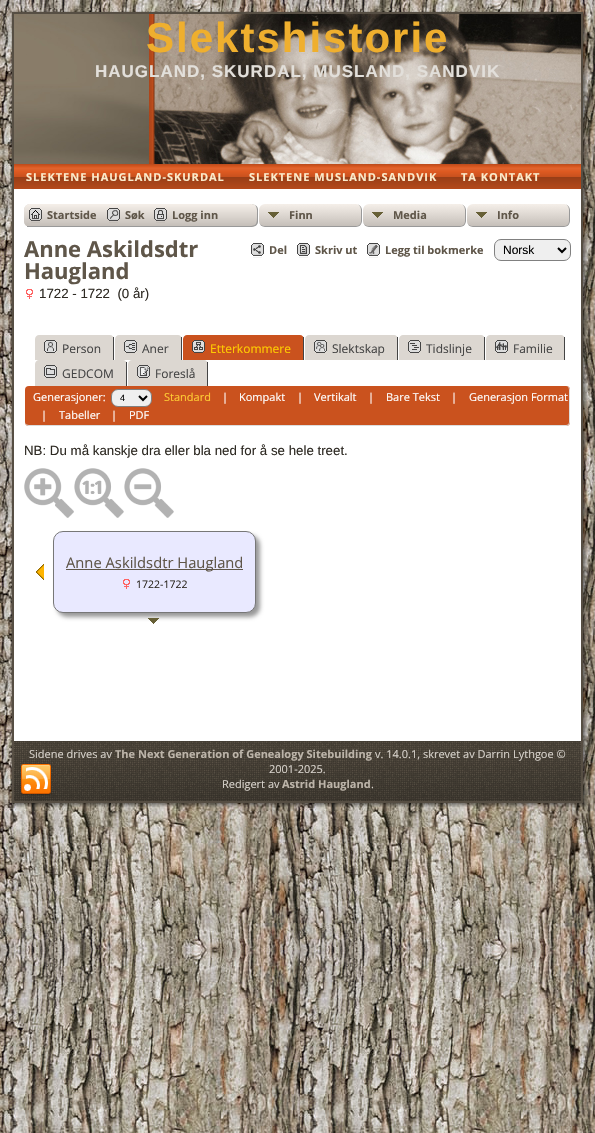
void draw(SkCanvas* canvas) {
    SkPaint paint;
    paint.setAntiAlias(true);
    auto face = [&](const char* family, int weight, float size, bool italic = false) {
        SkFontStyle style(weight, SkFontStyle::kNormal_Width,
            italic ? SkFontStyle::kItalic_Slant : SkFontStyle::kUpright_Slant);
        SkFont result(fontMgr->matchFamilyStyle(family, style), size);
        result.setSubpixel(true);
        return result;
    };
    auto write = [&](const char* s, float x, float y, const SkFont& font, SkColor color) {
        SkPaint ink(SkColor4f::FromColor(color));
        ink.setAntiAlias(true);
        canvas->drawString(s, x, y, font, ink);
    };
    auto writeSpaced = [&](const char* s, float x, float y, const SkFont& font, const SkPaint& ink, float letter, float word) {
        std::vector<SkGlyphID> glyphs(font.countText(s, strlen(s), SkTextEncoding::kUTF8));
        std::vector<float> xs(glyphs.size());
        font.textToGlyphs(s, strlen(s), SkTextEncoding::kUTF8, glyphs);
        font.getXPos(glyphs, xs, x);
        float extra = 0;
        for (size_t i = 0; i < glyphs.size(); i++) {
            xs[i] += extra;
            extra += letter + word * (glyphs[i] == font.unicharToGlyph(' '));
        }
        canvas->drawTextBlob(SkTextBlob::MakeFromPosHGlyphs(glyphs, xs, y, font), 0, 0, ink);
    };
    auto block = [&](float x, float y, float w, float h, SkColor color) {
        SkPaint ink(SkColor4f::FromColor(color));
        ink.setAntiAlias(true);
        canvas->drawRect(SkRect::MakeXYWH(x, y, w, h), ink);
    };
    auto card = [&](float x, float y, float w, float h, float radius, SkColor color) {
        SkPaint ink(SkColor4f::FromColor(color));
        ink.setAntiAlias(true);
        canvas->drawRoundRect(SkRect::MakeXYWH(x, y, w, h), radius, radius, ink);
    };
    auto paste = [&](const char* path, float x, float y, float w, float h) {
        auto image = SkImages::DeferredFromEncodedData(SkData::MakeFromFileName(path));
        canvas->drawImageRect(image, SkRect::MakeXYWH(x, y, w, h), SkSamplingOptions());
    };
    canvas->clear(SK_ColorWHITE);
    paste("pic1.png", 0, 0, 595, 1133);
    paste("pic2.png", 11, 11, 15, 15);
    paste("pic3.png", 26, 11, 543, 3);
    paste("pic4.png", 569, 11, 18, 15);
    paste("pic5.png", 11, 26, 15, 763);
    paste("pic6.png", 14, 14, 135, 150);
    paste("pic35.png", 569, 26, 18, 763);
    paste("pic7.png", 149, 14, 432, 150);
    auto kFont1 = face("Liberation Sans", 700, 42);
    paint.setColor(SkColorSetRGB(239, 175, 46));
    writeSpaced("Slektshistorie", 146, 52, kFont1, paint, 2, 0);
    auto kFont2 = face("Liberation Sans", 700, 17);
    paint.setColor(SkColorSetRGB(226, 223, 218));
    writeSpaced("HAUGLAND, SKURDAL, MUSLAND, SANDVIK", 95, 77, kFont2, paint, 1, 0);
    paste("pic8.png", 14, 164, 567, 25);
    auto kFont3 = face("Open Sans", 700, 11);
    paint.setColor(SkColorSetRGB(251, 235, 203));
    writeSpaced("SLEKTENE HAUGLAND-SKURDAL", 26, 181, kFont3, paint, 1, 0);
    writeSpaced("SLEKTENE MUSLAND-SANDVIK", 249, 181, kFont3, paint, 1, 0);
    writeSpaced("TA KONTAKT", 461, 181, kFont3, paint, 1, 0);
    block(26, 189, 543, 552, SK_ColorWHITE);
    card(24, 204, 547, 23, 6, SkColorSetRGB(220, 215, 209));
    canvas->save();
    canvas->clipPath(SkPathBuilder().moveTo(30, 204).lineTo(565, 204).cubicTo(568.5f, 204, 571, 206.5f, 571, 210).lineTo(571, 221).cubicTo(571, 224.5f, 568.5f, 227, 565, 227).lineTo(30, 227).cubicTo(26.5f, 227, 24, 224.5f, 24, 221).lineTo(24, 210).cubicTo(24, 206.5f, 26.5f, 204, 30, 204).close().detach(), true);
    {
        const SkColor colors[] = {SkColorSetRGB(245, 239, 233), SkColorSetRGB(197, 191, 185)};
        const float stops[] = {0, 1};
        const SkPoint ends[] = {{298, 204}, {298, 226}};
        paint.setShader(SkGradientShader::MakeLinear(ends, colors, stops, 2, SkTileMode::kClamp));
        paint.setAlpha(255);
    }
    canvas->drawPath(SkPathBuilder().moveTo(30, 204).lineTo(565, 204).cubicTo(568.5f, 204, 571, 206.5f, 571, 210).lineTo(571, 226).lineTo(24, 226).lineTo(24, 210).cubicTo(24, 206.5f, 26.5f, 204, 30, 204).close().detach(), paint);
    canvas->restore();
    block(27, 226, 220, 1, SkColorSetRGB(153, 153, 153));
    paste("pic9.png", 29, 208, 13, 15);
    write("Startside", 47, 219, kFont3, SkColorSetRGB(95, 86, 73));
    paste("pic10.png", 107, 208, 13, 15);
    write("Søk", 125, 219, kFont3, SkColorSetRGB(95, 86, 73));
    paste("pic11.png", 154, 208, 13, 15);
    write("Logg inn", 172, 219, kFont3, SkColorSetRGB(95, 86, 73));
    block(252, 204, 319, 23, SK_ColorWHITE);
    canvas->save();
    canvas->clipPath(SkPathBuilder().moveTo(247, 204).lineTo(252, 204).cubicTo(255.5f, 204, 258, 206.5f, 258, 210).lineTo(258, 221).cubicTo(258, 224.5f, 255.5f, 227, 252, 227).lineTo(247, 227).close().detach(), true);
    {
        const SkColor colors[] = {SkColorSetRGB(245, 239, 233), SkColorSetRGB(197, 191, 185)};
        const float stops[] = {0, 1};
        const SkPoint ends[] = {{252, 204}, {252, 226}};
        paint.setShader(SkGradientShader::MakeLinear(ends, colors, stops, 2, SkTileMode::kClamp));
        paint.setAlpha(255);
    }
    canvas->drawRect(SkRect::MakeXYWH(247, 204, 11, 22), paint);
    {
        const SkColor colors[] = {SkColorSetRGB(245, 239, 233), SkColorSetRGB(197, 191, 185)};
        const float stops[] = {0, 1};
        const SkPoint ends[] = {{252, 226}, {252, 248}};
        paint.setShader(SkGradientShader::MakeLinear(ends, colors, stops, 2, SkTileMode::kClamp));
        paint.setAlpha(255);
    }
    canvas->drawRect(SkRect::MakeXYWH(247, 226, 11, 1), paint);
    canvas->restore();
    paint.setShader(nullptr);
    paint.setColor(SkColorSetRGB(153, 153, 153));
    canvas->drawPath(SkPathBuilder(SkPathFillType::kEvenOdd).moveTo(247, 204).cubicTo(251, 204, 257, 203.5f, 258, 209).lineTo(258, 222).cubicTo(257, 227.5f, 251, 227, 247, 227).close().moveTo(247, 204).lineTo(253, 204).cubicTo(258, 205.5f, 257, 212, 257, 215.5f).cubicTo(257, 225.5f, 256.5f, 226, 247, 226).close().detach(), paint);
    paste("pic12.png", 259, 204, 102, 22);
    canvas->drawPath(SkPathBuilder(SkPathFillType::kEvenOdd).moveTo(265, 204).lineTo(356, 204).cubicTo(359, 204, 362, 207, 362, 210).lineTo(362, 221).cubicTo(362, 224, 359, 227, 356, 227).lineTo(265, 227).cubicTo(262, 227, 259, 224, 259, 221).lineTo(259, 210).cubicTo(259, 207, 262, 204, 265, 204).close().moveTo(265, 204).lineTo(356, 204).cubicTo(359, 204, 361, 207, 361, 210).lineTo(361, 221).cubicTo(361, 224, 359, 226, 356, 226).lineTo(265, 226).cubicTo(262, 226, 259, 224, 259, 221).lineTo(259, 210).cubicTo(259, 207, 262, 204, 265, 204).close().detach(), paint);
    write("Finn", 289, 219, kFont3, SkColorSetRGB(95, 86, 73));
    paste("pic12.png", 363, 204, 102, 22);
    canvas->drawPath(SkPathBuilder(SkPathFillType::kEvenOdd).moveTo(369, 204).lineTo(460, 204).cubicTo(463, 204, 466, 207, 466, 210).lineTo(466, 221).cubicTo(466, 224, 463, 227, 460, 227).lineTo(369, 227).cubicTo(366, 227, 363, 224, 363, 221).lineTo(363, 210).cubicTo(363, 207, 366, 204, 369, 204).close().moveTo(369, 204).lineTo(460, 204).cubicTo(463, 204, 465, 207, 465, 210).lineTo(465, 221).cubicTo(465, 224, 463, 226, 460, 226).lineTo(369, 226).cubicTo(366, 226, 363, 224, 363, 221).lineTo(363, 210).cubicTo(363, 207, 366, 204, 369, 204).close().detach(), paint);
    write("Media", 393, 219, kFont3, SkColorSetRGB(95, 86, 73));
    paste("pic13.png", 467, 204, 102, 22);
    canvas->drawPath(SkPathBuilder(SkPathFillType::kEvenOdd).moveTo(473, 204).lineTo(564, 204).cubicTo(567, 204, 570, 207, 570, 210).lineTo(570, 221).cubicTo(570, 224, 567, 227, 564, 227).lineTo(473, 227).cubicTo(470, 227, 467, 224, 467, 221).lineTo(467, 210).cubicTo(467, 207, 470, 204, 473, 204).close().moveTo(473, 204).lineTo(564, 204).cubicTo(567, 204, 569, 207, 569, 210).lineTo(569, 221).cubicTo(569, 224, 567, 226, 564, 226).lineTo(473, 226).cubicTo(470, 226, 467, 224, 467, 221).lineTo(467, 210).cubicTo(467, 207, 470, 204, 473, 204).close().detach(), paint);
    write("Info", 497, 219, kFont3, SkColorSetRGB(95, 86, 73));
    auto kFont4 = face("Open Sans", 700, 22);
    write("Anne Askildsdtr", 24, 257, kFont4, SkColorSetRGB(95, 86, 73));
    write("Haugland", 24, 279, kFont4, SkColorSetRGB(95, 86, 73));
    paste("pic14.png", 251, 243, 13, 15);
    write("Del", 269, 254, kFont3, SkColorSetRGB(95, 86, 73));
    paste("pic15.png", 297, 243, 13, 15);
    write("Skriv ut", 315, 254, kFont3, SkColorSetRGB(95, 86, 73));
    paste("pic16.png", 367, 243, 13, 15);
    write("Legg til bokmerke", 385, 254, kFont3, SkColorSetRGB(95, 86, 73));
    paint.setColor(SkColorSetRGB(239, 239, 239));
    canvas->drawRoundRect(SkRect::MakeXYWH(494.5f, 239.5f, 76, 21), 6.5f, 6.5f, paint);
    paint.setStyle(SkPaint::kStroke_Style);
    paint.setStrokeWidth(1);
    paint.setColor(SkColorSetRGB(128, 128, 128));
    canvas->drawRoundRect(SkRect::MakeXYWH(494.5f, 239.5f, 76, 21), 6.5f, 6.5f, paint);
    paint.setStrokeWidth(2);
    paint.setColor(SK_ColorBLACK);
    canvas->drawPath(SkPathBuilder().moveTo(558, 248).lineTo(562, 252).lineTo(566, 248).detach(), paint);
    auto kFont5 = face("Liberation Sans", 400, 12);
    write("Norsk", 503, 254, kFont5, SK_ColorBLACK);
    paste("pic17.png", 26, 289, 7, 10);
    auto kFont6 = face("Liberation Sans", 400, 13.3f);
    write("1722 - 1722  (0 år)", 39, 298, kFont6, SkColorSetRGB(46, 42, 35));
    paint.setStyle(SkPaint::kFill_Style);
    paint.setColor(SkColorSetRGB(220, 215, 209));
    canvas->drawPath(SkPathBuilder().moveTo(39, 335).lineTo(110, 335).cubicTo(112, 335, 114, 337, 114, 339).lineTo(114, 360).lineTo(35, 360).lineTo(35, 339).cubicTo(35, 337, 37, 335, 39, 335).close().detach(), paint);
    block(113, 337, 1, 23, SkColorSetRGB(68, 68, 68));
    paste("pic18.png", 44, 340, 13, 13);
    auto kFont7 = face("Open Sans", 400, 12);
    write("Person", 62, 353, kFont7, SkColorSetRGB(68, 68, 68));
    canvas->drawPath(SkPathBuilder().moveTo(119, 335).lineTo(178, 335).cubicTo(180, 335, 182, 337, 182, 339).lineTo(182, 360).lineTo(115, 360).lineTo(115, 339).cubicTo(115, 337, 117, 335, 119, 335).close().detach(), paint);
    block(181, 337, 1, 23, SkColorSetRGB(68, 68, 68));
    paste("pic19.png", 124, 340, 13, 13);
    write("Aner", 142, 353, kFont7, SkColorSetRGB(68, 68, 68));
    paint.setColor(SkColorSetRGB(202, 82, 30));
    canvas->drawPath(SkPathBuilder().moveTo(187, 335).lineTo(300, 335).cubicTo(302, 335, 304, 337, 304, 339).lineTo(304, 360).lineTo(183, 360).lineTo(183, 339).cubicTo(183, 337, 185, 335, 187, 335).close().detach(), paint);
    block(303, 337, 1, 23, SkColorSetRGB(68, 68, 68));
    paste("pic20.png", 192, 340, 13, 13);
    write("Etterkommere", 210, 353, kFont7, SkColorSetRGB(255, 204, 0));
    paint.setColor(SkColorSetRGB(220, 215, 209));
    canvas->drawPath(SkPathBuilder().moveTo(309, 335).lineTo(394, 335).cubicTo(396, 335, 398, 337, 398, 339).lineTo(398, 360).lineTo(305, 360).lineTo(305, 339).cubicTo(305, 337, 307, 335, 309, 335).close().detach(), paint);
    block(397, 337, 1, 23, SkColorSetRGB(68, 68, 68));
    paste("pic21.png", 314, 340, 13, 13);
    write("Slektskap", 332, 353, kFont7, SkColorSetRGB(68, 68, 68));
    canvas->drawPath(SkPathBuilder().moveTo(403, 335).lineTo(481, 335).cubicTo(483, 335, 485, 337, 485, 339).lineTo(485, 360).lineTo(399, 360).lineTo(399, 339).cubicTo(399, 337, 401, 335, 403, 335).close().detach(), paint);
    block(484, 337, 1, 23, SkColorSetRGB(68, 68, 68));
    paste("pic22.png", 408, 340, 13, 13);
    write("Tidslinje", 426, 353, kFont7, SkColorSetRGB(68, 68, 68));
    canvas->drawPath(SkPathBuilder().moveTo(490, 335).lineTo(561, 335).cubicTo(563, 335, 565, 337, 565, 339).lineTo(565, 360).lineTo(486, 360).lineTo(486, 339).cubicTo(486, 337, 488, 335, 490, 335).close().detach(), paint);
    block(564, 337, 1, 23, SkColorSetRGB(68, 68, 68));
    paste("pic23.png", 495, 340, 13, 13);
    write("Familie", 513, 353, kFont7, SkColorSetRGB(68, 68, 68));
    canvas->drawPath(SkPathBuilder().moveTo(39, 360).lineTo(123, 360).cubicTo(125, 360, 127, 362, 127, 364).lineTo(127, 386).lineTo(35, 386).lineTo(35, 364).cubicTo(35, 362, 37, 360, 39, 360).close().detach(), paint);
    block(126, 362, 1, 24, SkColorSetRGB(68, 68, 68));
    paste("pic24.png", 44, 365, 13, 13);
    write("GEDCOM", 62, 378, kFont7, SkColorSetRGB(68, 68, 68));
    canvas->drawPath(SkPathBuilder().moveTo(132, 360).lineTo(204, 360).cubicTo(206, 360, 208, 362, 208, 364).lineTo(208, 386).lineTo(128, 386).lineTo(128, 364).cubicTo(128, 362, 130, 360, 132, 360).close().detach(), paint);
    block(207, 362, 1, 24, SkColorSetRGB(68, 68, 68));
    paste("pic25.png", 137, 365, 13, 13);
    write("Foreslå", 155, 378, kFont7, SkColorSetRGB(68, 68, 68));
    card(25, 386, 545, 40, 4, SkColorSetRGB(202, 82, 30));
    paint.setColor(SkColorSetRGB(221, 221, 221));
    canvas->drawPath(SkPathBuilder(SkPathFillType::kEvenOdd).moveTo(29, 386).lineTo(566, 386).cubicTo(568, 386, 570, 388, 570, 390).lineTo(570, 422).cubicTo(570, 424, 568, 426, 566, 426).lineTo(29, 426).cubicTo(27, 426, 25, 424, 25, 422).lineTo(25, 390).cubicTo(25, 388, 27, 386, 29, 386).close().moveTo(29, 386).lineTo(566, 386).cubicTo(568, 386, 569, 388, 569, 390).lineTo(569, 422).cubicTo(569, 424, 568, 425, 566, 425).lineTo(29, 425).cubicTo(27, 425, 25, 424, 25, 422).lineTo(25, 390).cubicTo(25, 388, 27, 386, 29, 386).close().detach(), paint);
    auto kFont8 = face("Open Sans", 400, 11);
    write("Generasjoner:", 33, 401, kFont8, SK_ColorWHITE);
    paint.setColor(SkColorSetRGB(239, 239, 239));
    canvas->drawRoundRect(SkRect::MakeXYWH(111.5f, 389.5f, 40, 17), 6.5f, 6.5f, paint);
    paint.setStyle(SkPaint::kStroke_Style);
    paint.setStrokeWidth(1);
    paint.setColor(SkColorSetRGB(128, 128, 128));
    canvas->drawRoundRect(SkRect::MakeXYWH(111.5f, 389.5f, 40, 17), 6.5f, 6.5f, paint);
    paint.setStrokeWidth(2);
    paint.setColor(SK_ColorBLACK);
    canvas->drawPath(SkPathBuilder().moveTo(139, 396).lineTo(143, 400).lineTo(147, 396).detach(), paint);
    auto kFont9 = face("Liberation Sans", 400, 9);
    write("4", 120, 401, kFont9, SK_ColorBLACK);
    write("Standard", 164, 401, kFont8, SkColorSetRGB(255, 204, 51));
    write("|", 222, 401, kFont8, SK_ColorWHITE);
    write("Kompakt", 239, 401, kFont8, SK_ColorWHITE);
    write("|", 297, 401, kFont8, SK_ColorWHITE);
    write("Vertikalt", 314, 401, kFont8, SK_ColorWHITE);
    write("|", 368, 401, kFont8, SK_ColorWHITE);
    write("Bare Tekst", 386, 401, kFont8, SK_ColorWHITE);
    write("|", 451, 401, kFont8, SK_ColorWHITE);
    write("Generasjon Format", 469, 401, kFont8, SK_ColorWHITE);
    write("|", 41, 419, kFont8, SK_ColorWHITE);
    write("Tabeller", 59, 419, kFont8, SK_ColorWHITE);
    write("|", 111, 419, kFont8, SK_ColorWHITE);
    write("PDF", 129, 419, kFont8, SK_ColorWHITE);
    write("NB: Du må kanskje dra eller bla ned for å se hele treet.", 24, 455, kFont6, SkColorSetRGB(46, 42, 35));
    paste("pic26.png", 24, 468, 50, 50);
    paste("pic27.png", 74, 468, 50, 50);
    paste("pic28.png", 124, 468, 50, 50);
    paste("pic29.png", 36, 564, 8, 16);
    paint.setStyle(SkPaint::kFill_Style);
    paint.setColor(SkColorSetRGB(153, 153, 153));
    paint.setMaskFilter(SkMaskFilter::MakeBlur(kNormal_SkBlurStyle, 2));
    canvas->drawRoundRect(SkRect::MakeXYWH(57, 535, 203, 82), 10, 10, paint);
    paint.setMaskFilter(nullptr);
    paint.setColor(SkColorSetRGB(233, 233, 255));
    canvas->drawRoundRect(SkRect::MakeXYWH(53.5f, 531.5f, 202, 81), 9.5f, 9.5f, paint);
    paint.setStyle(SkPaint::kStroke_Style);
    paint.setStrokeWidth(1);
    paint.setColor(SkColorSetRGB(119, 119, 119));
    canvas->drawRoundRect(SkRect::MakeXYWH(53.5f, 531.5f, 202, 81), 9.5f, 9.5f, paint);
    block(66, 569, 177, 1, SkColorSetRGB(95, 86, 73));
    auto kFont10 = face("Open Sans", 400, 14.75f);
    write("Anne Askildsdtr Haugland", 66, 568, kFont10, SkColorSetRGB(95, 86, 73));
    paste("pic30.png", 123, 579, 7, 10);
    auto kFont11 = face("Open Sans", 400, 10.5f);
    write("1722-1722", 136, 588, kFont11, SkColorSetRGB(46, 42, 35));
    paste("pic31.png", 148, 618, 11, 6);
    paste("pic32.png", 14, 741, 567, 10);
    paste("pic36.png", 11, 789, 15, 18);
    paste("pic38.png", 569, 789, 18, 18);
    paste("pic34.png", 14, 751, 567, 50);
    write("Sidene drives av", 29, 758, kFont8, SkColorSetRGB(215, 210, 203));
    write("The Next Generation of Genealogy Sitebuilding", 115, 758, kFont3, SkColorSetRGB(188, 180, 169));
    write("v. 14.0.1, skrevet av Darrin Lythgoe ©", 375, 758, kFont8, SkColorSetRGB(215, 210, 203));
    write("2001-2025.", 269, 773, kFont8, SkColorSetRGB(215, 210, 203));
    write("Redigert av", 222, 788, kFont8, SkColorSetRGB(215, 210, 203));
    write("Astrid Haugland", 282, 788, kFont3, SkColorSetRGB(188, 180, 169));
    write(".", 371, 788, kFont8, SkColorSetRGB(215, 210, 203));
    paste("pic33.png", 20, 764, 32, 31);
    paste("pic37.png", 26, 801, 543, 6);
}
